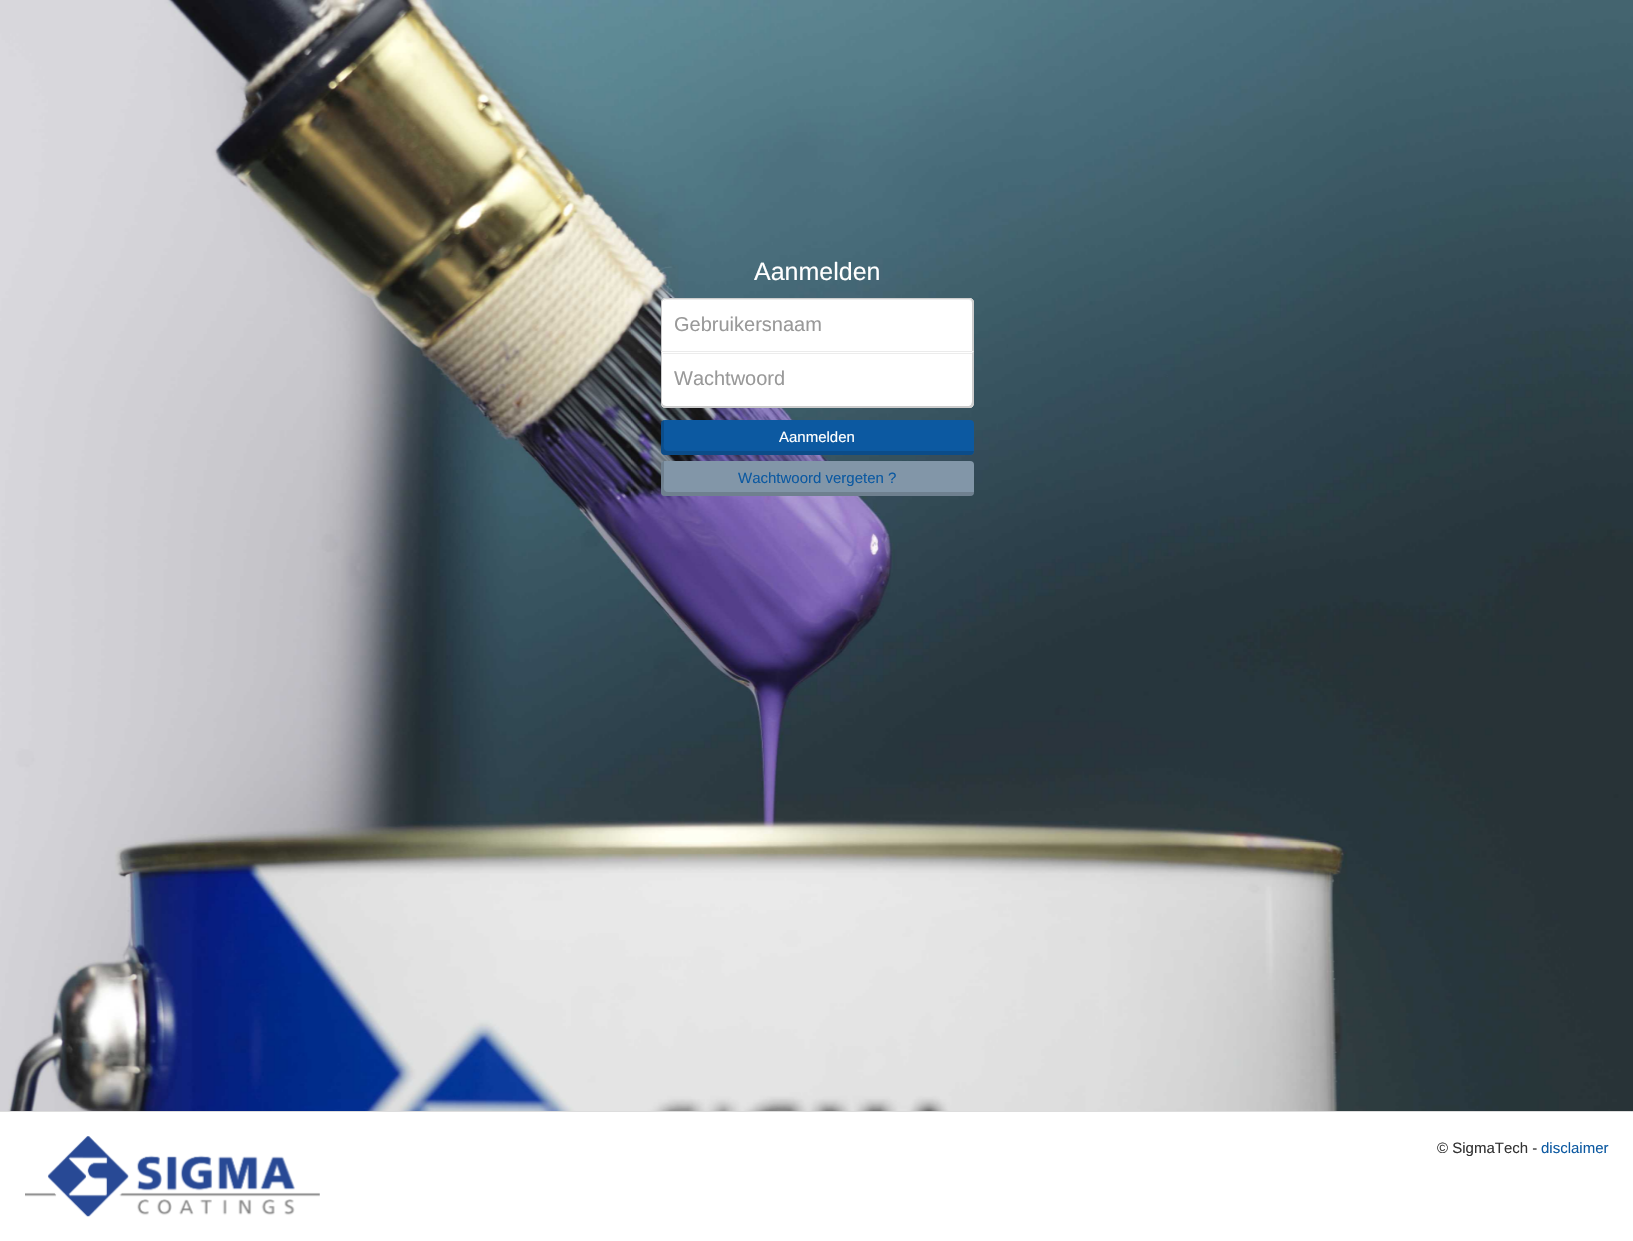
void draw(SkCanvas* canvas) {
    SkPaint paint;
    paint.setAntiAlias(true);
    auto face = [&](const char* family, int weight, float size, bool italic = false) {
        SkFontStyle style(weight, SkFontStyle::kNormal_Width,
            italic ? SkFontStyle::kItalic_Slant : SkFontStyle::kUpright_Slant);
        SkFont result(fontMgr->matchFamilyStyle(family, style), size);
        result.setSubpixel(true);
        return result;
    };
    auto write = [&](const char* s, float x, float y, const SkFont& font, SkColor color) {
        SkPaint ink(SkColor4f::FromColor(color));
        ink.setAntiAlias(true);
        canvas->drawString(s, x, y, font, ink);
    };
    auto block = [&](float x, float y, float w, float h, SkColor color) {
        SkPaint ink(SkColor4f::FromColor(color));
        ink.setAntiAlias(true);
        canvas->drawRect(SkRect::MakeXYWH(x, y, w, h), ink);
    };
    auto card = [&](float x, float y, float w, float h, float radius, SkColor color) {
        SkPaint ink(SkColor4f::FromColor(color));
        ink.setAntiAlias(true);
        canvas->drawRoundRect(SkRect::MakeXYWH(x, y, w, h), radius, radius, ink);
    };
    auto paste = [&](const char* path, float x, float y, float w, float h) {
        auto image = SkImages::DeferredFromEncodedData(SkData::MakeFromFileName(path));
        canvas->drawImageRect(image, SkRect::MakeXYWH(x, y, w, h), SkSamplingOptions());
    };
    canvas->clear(SK_ColorWHITE);
    paste("pic1.png", 0, 0, 1633, 1111);
    auto kFont1 = face("Liberation Sans", 400, 25);
    write("Aanmelden", 754, 280, kFont1, SK_ColorWHITE);
    paint.setColor(SK_ColorWHITE);
    canvas->drawPath(SkPathBuilder().moveTo(666, 298).lineTo(969, 298).cubicTo(972, 298, 974, 300, 974, 303).lineTo(974, 353).lineTo(661, 353).lineTo(661, 303).cubicTo(661, 300, 663, 298, 666, 298).close().detach(), paint);
    paint.setColor(SkColorSetRGB(236, 236, 236));
    canvas->drawPath(SkPathBuilder().moveTo(666, 300).lineTo(969, 300).cubicTo(971, 300, 972, 302, 972, 304).lineTo(972, 353).lineTo(973, 353).lineTo(973, 303).cubicTo(973, 301, 971, 299, 969, 299).lineTo(667, 299).cubicTo(666, 299, 664, 300, 664, 301).close().detach(), paint);
    paint.setColor(SkColorSetRGB(204, 204, 204));
    canvas->drawPath(SkPathBuilder(SkPathFillType::kEvenOdd).moveTo(666, 298).lineTo(969, 298).cubicTo(972, 298, 974, 300, 974, 302).lineTo(974, 352).lineTo(661, 352).lineTo(661, 302).cubicTo(661, 300, 663, 298, 666, 298).close().moveTo(666, 299).lineTo(969, 299).cubicTo(971, 299, 972, 300, 972, 302).lineTo(972, 352).lineTo(662, 352).lineTo(662, 302).cubicTo(662, 300, 664, 299, 666, 299).close().detach(), paint);
    auto kFont2 = face("Liberation Sans", 400, 20);
    write("Gebruikersnaam", 674, 331, kFont2, SkColorSetRGB(153, 153, 153));
    paint.setColor(SK_ColorWHITE);
    canvas->drawPath(SkPathBuilder().moveTo(661, 351).lineTo(974, 351).lineTo(974, 403).cubicTo(974, 406, 972, 408, 969, 408).lineTo(666, 408).cubicTo(663, 408, 661, 406, 661, 403).close().detach(), paint);
    paint.setColor(SkColorSetRGB(236, 236, 236));
    canvas->drawPath(SkPathBuilder().moveTo(663, 353).lineTo(663, 354).lineTo(972, 354).lineTo(972, 405).cubicTo(973, 404, 973, 403, 973, 402).lineTo(973, 353).close().detach(), paint);
    paint.setColor(SkColorSetRGB(235, 235, 235));
    canvas->drawPath(SkPathBuilder().moveTo(662, 352).lineTo(972, 352).lineTo(972, 353).lineTo(974, 351).lineTo(661, 351).close().detach(), paint);
    paint.setColor(SkColorSetRGB(204, 204, 204));
    canvas->drawPath(SkPathBuilder().moveTo(974, 351).lineTo(974, 404).lineTo(973, 406).lineTo(971, 405).lineTo(972, 402).lineTo(972, 353).close().detach(), paint);
    canvas->drawPath(SkPathBuilder().moveTo(664, 408).lineTo(662, 406).lineTo(663, 405).lineTo(666, 406).lineTo(969, 406).lineTo(971, 405).lineTo(973, 406).lineTo(971, 408).close().detach(), paint);
    canvas->drawPath(SkPathBuilder().moveTo(662, 352).lineTo(662, 403).lineTo(663, 405).lineTo(662, 406).lineTo(661, 404).lineTo(661, 351).close().detach(), paint);
    write("Wachtwoord", 674, 385, kFont2, SkColorSetRGB(153, 153, 153));
    card(661, 420, 313, 35, 4, SkColorSetRGB(12, 89, 161));
    paint.setColor(SkColorSetARGB(38, 0, 0, 0));
    canvas->drawPath(SkPathBuilder().moveTo(664, 420).cubicTo(662, 421, 661, 422, 661, 424).lineTo(661, 451).cubicTo(661, 453, 663, 455, 665, 455).lineTo(970, 455).cubicTo(972, 455, 974, 453, 974, 451).lineTo(668, 451).cubicTo(662, 451, 664, 444, 664, 439).close().detach(), paint);
    auto kFont3 = face("Liberation Sans", 400, 15);
    write("Aanmelden", 779, 442, kFont3, SK_ColorWHITE);
    card(661, 461, 313, 35, 4, SkColorSetRGB(130, 150, 168));
    canvas->drawPath(SkPathBuilder().moveTo(664, 461).cubicTo(662, 462, 661, 463, 661, 465).lineTo(661, 492).cubicTo(661, 494, 663, 496, 665, 496).lineTo(970, 496).cubicTo(972, 496, 974, 494, 974, 492).lineTo(668, 492).cubicTo(662, 492, 664, 485, 664, 480).close().detach(), paint);
    write("Wachtwoord vergeten ?", 738, 483, kFont3, SkColorSetRGB(12, 89, 161));
    block(0, 1111, 1633, 1, SkColorSetRGB(221, 221, 221));
    paste("pic2.png", 25, 1136, 295, 81);
    write("© SigmaTech -", 1437, 1153, kFont3, SkColorSetRGB(51, 51, 51));
    write("disclaimer", 1541, 1153, kFont3, SkColorSetRGB(12, 89, 161));
}
